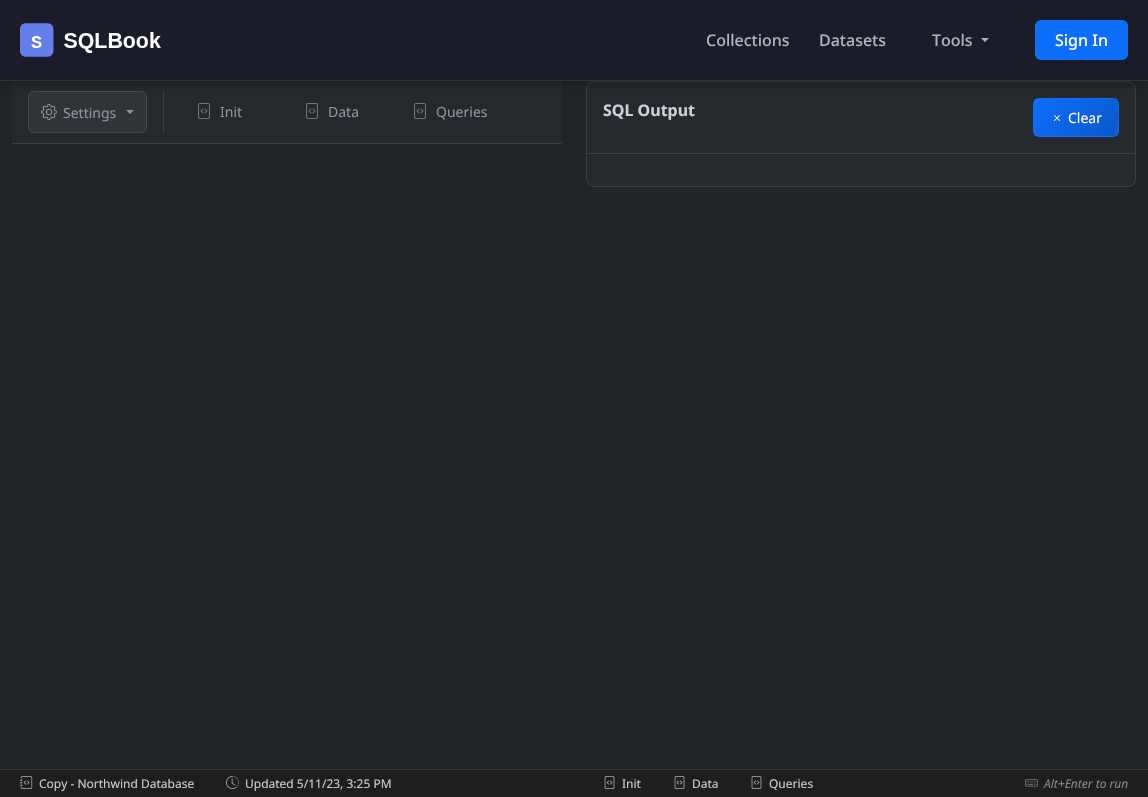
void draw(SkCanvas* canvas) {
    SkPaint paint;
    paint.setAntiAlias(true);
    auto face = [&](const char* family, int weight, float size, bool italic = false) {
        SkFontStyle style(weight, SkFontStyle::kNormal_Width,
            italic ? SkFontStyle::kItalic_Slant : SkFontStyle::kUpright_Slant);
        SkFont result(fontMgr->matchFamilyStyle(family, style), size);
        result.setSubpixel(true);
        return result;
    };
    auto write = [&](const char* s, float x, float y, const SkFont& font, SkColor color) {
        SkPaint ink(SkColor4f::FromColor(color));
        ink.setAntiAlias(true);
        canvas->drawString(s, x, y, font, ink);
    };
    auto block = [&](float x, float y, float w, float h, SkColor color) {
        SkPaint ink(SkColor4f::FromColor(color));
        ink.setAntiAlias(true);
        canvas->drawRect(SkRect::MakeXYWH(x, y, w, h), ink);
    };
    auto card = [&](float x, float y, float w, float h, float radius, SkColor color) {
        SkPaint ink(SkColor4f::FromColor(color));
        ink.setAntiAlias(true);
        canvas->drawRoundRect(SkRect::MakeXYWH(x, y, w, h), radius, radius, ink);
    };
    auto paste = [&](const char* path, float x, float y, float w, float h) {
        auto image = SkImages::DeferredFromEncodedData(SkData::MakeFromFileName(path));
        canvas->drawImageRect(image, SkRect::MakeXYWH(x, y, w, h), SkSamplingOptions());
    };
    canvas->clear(SkColorSetRGB(33, 37, 41));
    block(12, 81, 550, 62, SkColorSetRGB(37, 41, 45));
    block(163, 91, 1, 42, SkColorSetRGB(59, 62, 66));
    paint.setColor(SkColorSetRGB(48, 52, 56));
    canvas->drawRoundRect(SkRect::MakeXYWH(28.5f, 91.5f, 118, 41), 5.5f, 5.5f, paint);
    paint.setStyle(SkPaint::kStroke_Style);
    paint.setStrokeWidth(1);
    paint.setColor(SkColorSetRGB(69, 72, 76));
    canvas->drawRoundRect(SkRect::MakeXYWH(28.5f, 91.5f, 118, 41), 5.5f, 5.5f, paint);
    paint.setStyle(SkPaint::kFill_Style);
    paint.setColor(SkColorSetRGB(37, 41, 45));
    canvas->drawRoundRect(SkRect::MakeXYWH(586.5f, 81.5f, 549, 105), 7.5f, 7.5f, paint);
    paint.setStyle(SkPaint::kStroke_Style);
    paint.setColor(SkColorSetRGB(59, 62, 66));
    canvas->drawRoundRect(SkRect::MakeXYWH(586.5f, 81.5f, 549, 105), 7.5f, 7.5f, paint);
    canvas->save();
    canvas->clipPath(SkPathBuilder().moveTo(1039, 98).lineTo(1113, 98).cubicTo(1116.5f, 98, 1119, 100.5f, 1119, 104).lineTo(1119, 131).cubicTo(1119, 134.5f, 1116.5f, 137, 1113, 137).lineTo(1039, 137).cubicTo(1035.5f, 137, 1033, 134.5f, 1033, 131).lineTo(1033, 104).cubicTo(1033, 100.5f, 1035.5f, 98, 1039, 98).close().detach(), true);
    paint.setStyle(SkPaint::kFill_Style);
    {
        const SkColor colors[] = {SkColorSetRGB(13, 110, 253), SkColorSetRGB(10, 88, 202)};
        const float stops[] = {0, 1};
        const SkPoint ends[] = {{1046, 87}, {1106, 148}};
        paint.setShader(SkGradientShader::MakeLinear(ends, colors, stops, 2, SkTileMode::kClamp));
        paint.setAlpha(255);
    }
    canvas->drawRect(SkRect::MakeXYWH(1034, 99, 84, 37), paint);
    canvas->restore();
    paint.setStyle(SkPaint::kStroke_Style);
    paint.setShader(nullptr);
    paint.setColor(SkColorSetRGB(13, 110, 253));
    canvas->drawRoundRect(SkRect::MakeXYWH(1033.5f, 98.5f, 85, 38), 5.5f, 5.5f, paint);
    paint.setStyle(SkPaint::kFill_Style);
    paint.setColor(SkColorSetARGB(77, 0, 0, 0));
    paint.setMaskFilter(SkMaskFilter::MakeBlur(kNormal_SkBlurStyle, 5));
    canvas->drawRect(SkRect::MakeXYWH(0, 2, 1148, 81), paint);
    paint.setMaskFilter(nullptr);
    block(0, 0, 1148, 80, SkColorSetRGB(26, 29, 41));
    block(0, 80, 1148, 1, SkColorSetRGB(49, 52, 62));
    paste("pic1.png", 20, 23, 141, 34);
    auto kFont1 = face("Noto Sans", 500, 16);
    write("Collections", 706, 46, kFont1, SkColorSetRGB(173, 181, 189));
    write("Datasets", 819, 46, kFont1, SkColorSetRGB(173, 181, 189));
    write("Tools", 932, 46, kFont1, SkColorSetRGB(173, 181, 189));
    paint.setColor(SkColorSetRGB(173, 181, 189));
    canvas->drawPath(SkPathBuilder().moveTo(981, 38).lineTo(989, 38).lineTo(985, 42).close().detach(), paint);
    card(1035, 20, 93, 40, 6, SkColorSetRGB(13, 110, 253));
    write("Sign In", 1055, 46, kFont1, SK_ColorWHITE);
    block(12, 143, 550, 1, SkColorSetRGB(59, 62, 66));
    paste("pic2.png", 41, 104, 16, 16);
    auto kFont2 = face("Noto Sans", 400, 14);
    write("Settings", 63, 118, kFont2, SkColorSetRGB(139, 148, 158));
    paint.setColor(SkColorSetRGB(139, 148, 158));
    canvas->drawPath(SkPathBuilder().moveTo(126, 110).lineTo(134, 110).lineTo(130, 114).close().detach(), paint);
    paste("pic3.png", 198, 103, 12, 16);
    write("Init", 220, 117, kFont2, SkColorSetRGB(139, 148, 158));
    paste("pic3.png", 306, 103, 12, 16);
    write("Data", 328, 117, kFont2, SkColorSetRGB(139, 148, 158));
    paste("pic3.png", 414, 103, 12, 16);
    write("Queries", 436, 117, kFont2, SkColorSetRGB(139, 148, 158));
    block(587, 153, 548, 1, SkColorSetRGB(59, 62, 66));
    auto kFont3 = face("Noto Sans", 700, 16);
    write("SQL Output", 603, 116, kFont3, SkColorSetRGB(201, 209, 217));
    paste("pic4.png", 1054, 115, 6, 6);
    write("Clear", 1068, 123, kFont2, SK_ColorWHITE);
    block(0, 770, 1148, 27, SkColorSetRGB(30, 30, 30));
    block(0, 769, 1148, 1, SkColorSetRGB(53, 53, 53));
    paste("pic5.png", 20, 776, 13, 13);
    auto kFont4 = face("Noto Sans", 400, 12);
    write("Copy - Northwind Database", 39, 788, kFont4, SkColorSetRGB(204, 204, 204));
    paste("pic6.png", 226, 776, 13, 13);
    write("Updated 5/11/23, 3:25 PM", 245, 788, kFont4, SkColorSetRGB(204, 204, 204));
    paste("pic7.png", 604, 776, 11, 13);
    write("Init", 622, 788, kFont4, SkColorSetRGB(204, 204, 204));
    paste("pic7.png", 674, 776, 11, 13);
    write("Data", 692, 788, kFont4, SkColorSetRGB(204, 204, 204));
    paste("pic7.png", 751, 776, 11, 13);
    write("Queries", 769, 788, kFont4, SkColorSetRGB(204, 204, 204));
    paste("pic8.png", 1025, 779, 13, 8);
    auto kFont5 = face("Noto Sans", 400, 12, true);
    write("Alt+Enter to run", 1044, 788, kFont5, SkColorSetRGB(136, 136, 136));
}
